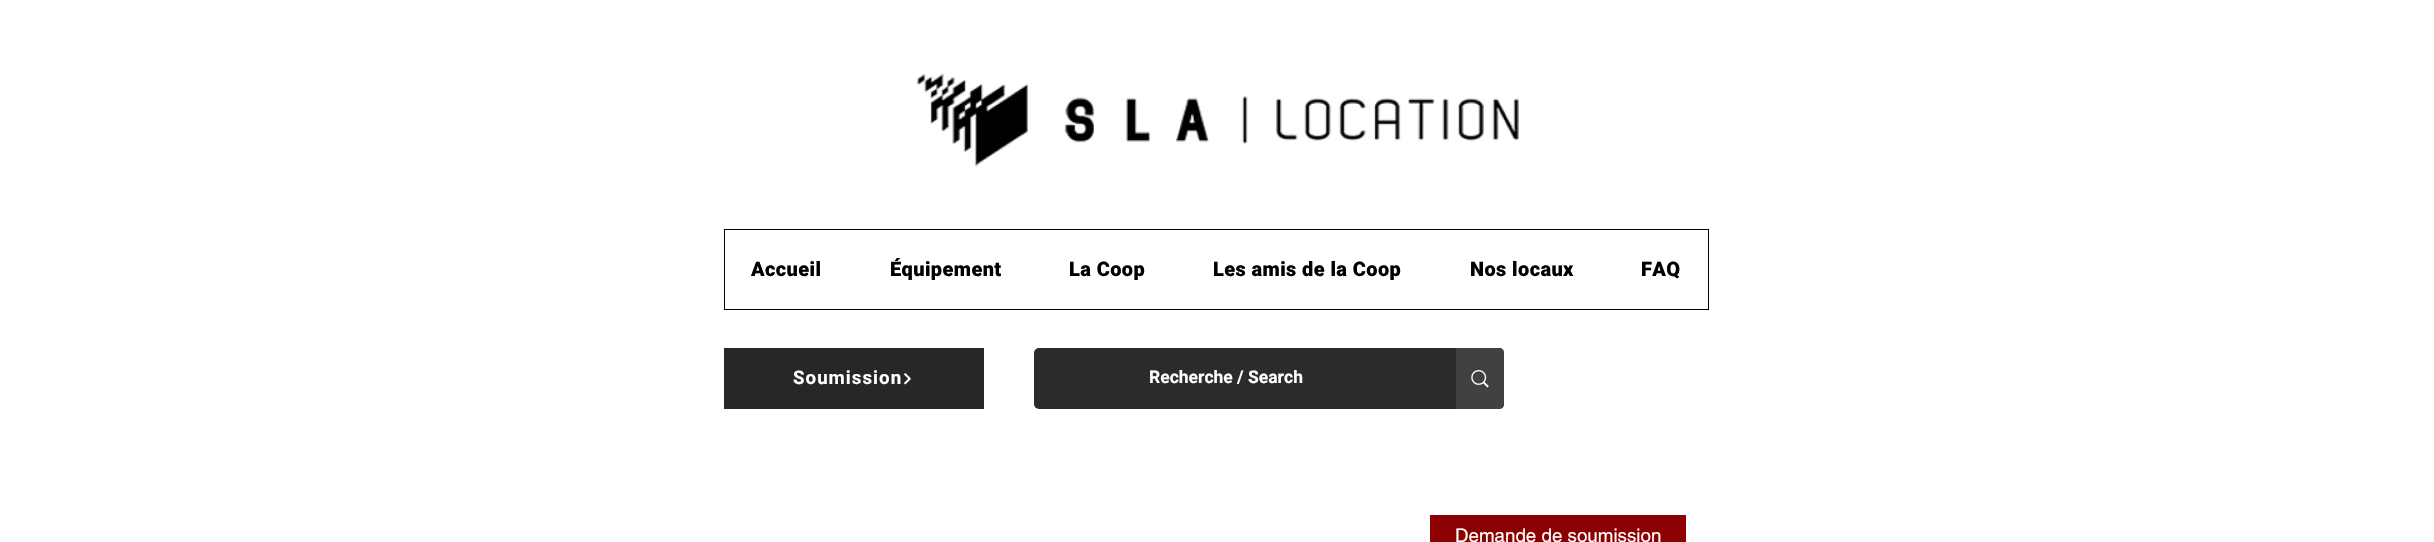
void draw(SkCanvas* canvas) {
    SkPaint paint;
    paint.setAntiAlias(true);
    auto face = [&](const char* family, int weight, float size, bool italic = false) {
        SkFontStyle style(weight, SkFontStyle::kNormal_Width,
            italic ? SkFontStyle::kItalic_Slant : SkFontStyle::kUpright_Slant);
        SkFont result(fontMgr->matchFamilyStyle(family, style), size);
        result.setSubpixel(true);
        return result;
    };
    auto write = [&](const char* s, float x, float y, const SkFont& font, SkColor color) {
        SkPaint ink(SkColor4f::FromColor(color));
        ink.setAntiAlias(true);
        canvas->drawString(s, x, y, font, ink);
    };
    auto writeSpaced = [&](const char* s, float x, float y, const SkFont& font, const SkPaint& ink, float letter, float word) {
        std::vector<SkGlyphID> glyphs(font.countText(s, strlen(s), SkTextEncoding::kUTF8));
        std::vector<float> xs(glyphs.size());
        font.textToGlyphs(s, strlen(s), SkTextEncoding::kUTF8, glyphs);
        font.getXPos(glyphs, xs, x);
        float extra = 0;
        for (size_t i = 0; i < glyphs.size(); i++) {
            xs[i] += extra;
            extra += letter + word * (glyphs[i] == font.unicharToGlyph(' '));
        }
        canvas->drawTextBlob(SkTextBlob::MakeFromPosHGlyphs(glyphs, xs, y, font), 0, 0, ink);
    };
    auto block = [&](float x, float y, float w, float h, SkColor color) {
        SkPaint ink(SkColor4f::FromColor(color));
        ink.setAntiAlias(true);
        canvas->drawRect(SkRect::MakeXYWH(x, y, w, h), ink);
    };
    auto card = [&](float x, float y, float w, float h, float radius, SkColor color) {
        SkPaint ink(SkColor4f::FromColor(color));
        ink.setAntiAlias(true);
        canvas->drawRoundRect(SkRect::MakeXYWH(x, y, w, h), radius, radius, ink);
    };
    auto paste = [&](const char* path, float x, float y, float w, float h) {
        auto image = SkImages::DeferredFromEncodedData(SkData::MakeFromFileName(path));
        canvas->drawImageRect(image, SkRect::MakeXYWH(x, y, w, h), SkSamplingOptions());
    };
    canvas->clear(SK_ColorWHITE);
    paste("pic1.png", 917, 73, 602, 94);
    paint.setStyle(SkPaint::kStroke_Style);
    paint.setStrokeWidth(1);
    paint.setColor(SK_ColorBLACK);
    canvas->drawRect(SkRect::MakeXYWH(724.5f, 229.5f, 984, 80), paint);
    auto kFont1 = face("Roboto", 900, 20);
    paint.setStyle(SkPaint::kFill_Style);
    writeSpaced("Accueil", 751, 276, kFont1, paint, 0.4f, 0);
    writeSpaced("Équipement", 890, 276, kFont1, paint, 0.4f, 0);
    writeSpaced("La Coop", 1069, 276, kFont1, paint, 0.4f, 0);
    writeSpaced("Les amis de la Coop", 1213, 276, kFont1, paint, 0.4f, 0);
    writeSpaced("Nos locaux", 1470, 276, kFont1, paint, 0.4f, 0);
    writeSpaced("FAQ", 1641, 276, kFont1, paint, 0.4f, 0);
    block(724, 348, 260, 61, SkColorSetRGB(40, 38, 38));
    auto kFont2 = face("Roboto", 700, 18.75f);
    paint.setColor(SK_ColorWHITE);
    writeSpaced("Soumission", 793, 384, kFont2, paint, 1, 0);
    paste("pic2.png", 904, 373, 7, 12);
    card(1034, 348, 470, 61, 5, SkColorSetRGB(43, 43, 43));
    auto kFont3 = face("Roboto", 700, 17.5f);
    write("Recherche / Search", 1149, 383, kFont3, SK_ColorWHITE);
    paint.setColor(SkColorSetRGB(65, 65, 65));
    canvas->drawPath(SkPathBuilder().moveTo(1456, 348).lineTo(1499, 348).cubicTo(1502, 348, 1504, 350, 1504, 353).lineTo(1504, 404).cubicTo(1504, 407, 1502, 409, 1499, 409).lineTo(1456, 409).close().detach(), paint);
    paste("pic3.png", 1471, 370, 18, 18);
    block(1430, 515, 256, 27, SkColorSetRGB(139, 0, 0));
    auto kFont4 = face("helvetica", 400, 18.75f);
    write("Demande de soumission", 1455, 542, kFont4, SK_ColorWHITE);
}
